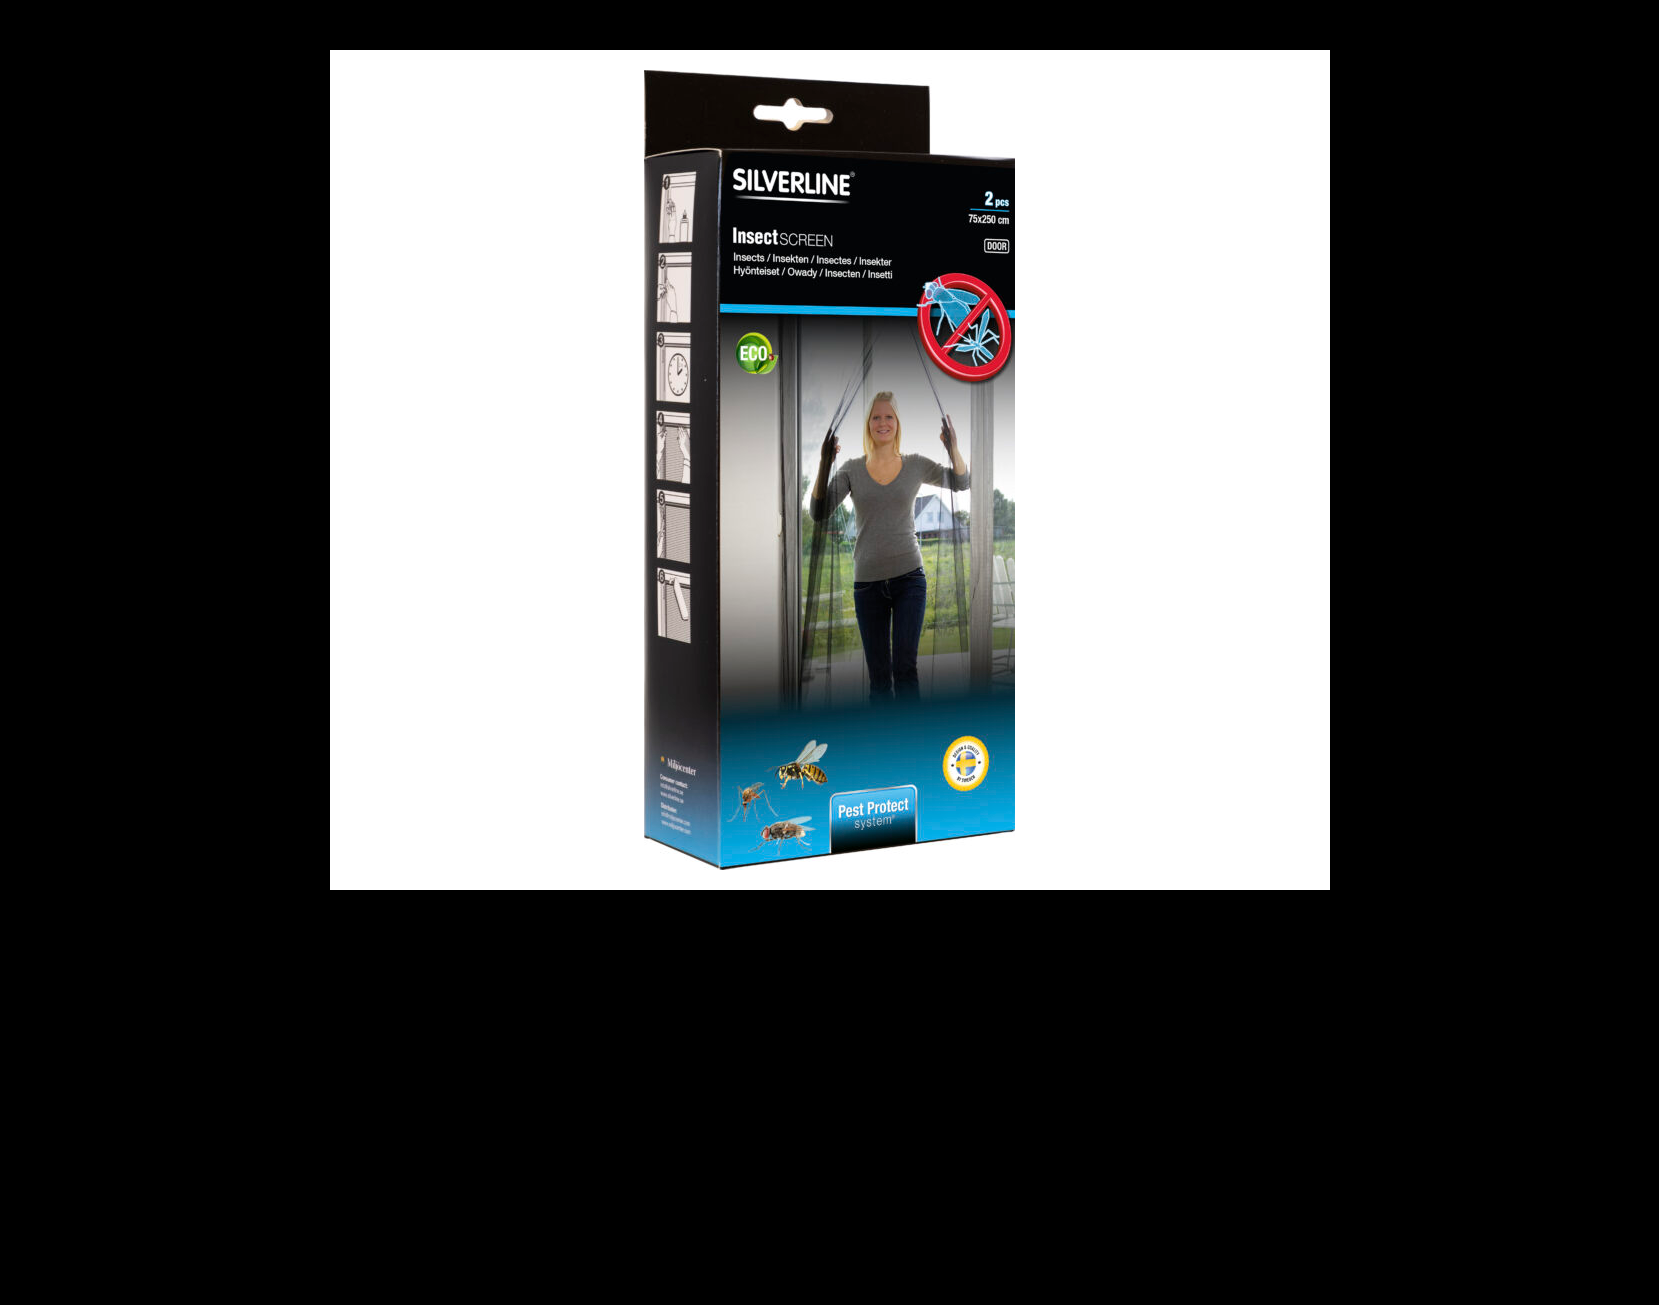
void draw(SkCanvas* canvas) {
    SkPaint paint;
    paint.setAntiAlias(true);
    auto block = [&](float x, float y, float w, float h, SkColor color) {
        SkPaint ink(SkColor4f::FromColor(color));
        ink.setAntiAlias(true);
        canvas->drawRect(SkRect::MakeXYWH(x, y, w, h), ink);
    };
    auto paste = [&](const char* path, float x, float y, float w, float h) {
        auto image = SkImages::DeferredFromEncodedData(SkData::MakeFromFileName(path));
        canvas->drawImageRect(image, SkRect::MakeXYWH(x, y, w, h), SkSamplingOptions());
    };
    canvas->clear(SK_ColorBLACK);
    block(330, 50, 1000, 840, SK_ColorWHITE);
    paste("pic1.png", 644, 70, 371, 800);
}
